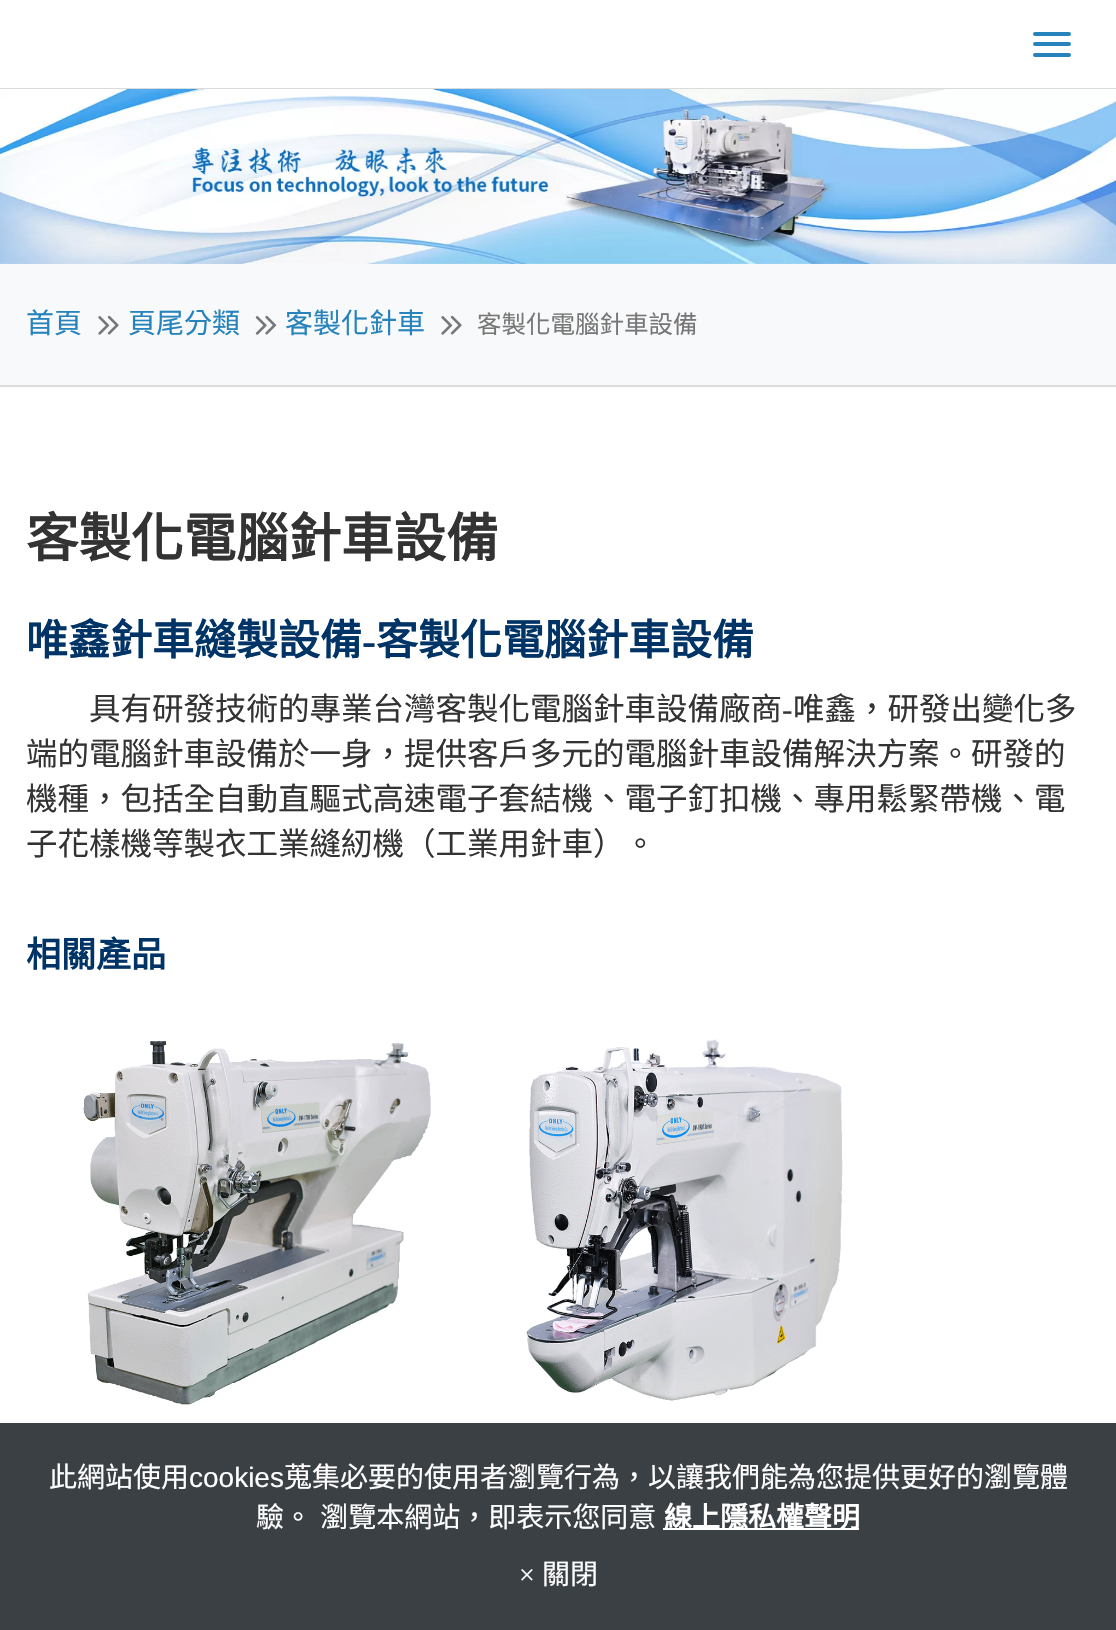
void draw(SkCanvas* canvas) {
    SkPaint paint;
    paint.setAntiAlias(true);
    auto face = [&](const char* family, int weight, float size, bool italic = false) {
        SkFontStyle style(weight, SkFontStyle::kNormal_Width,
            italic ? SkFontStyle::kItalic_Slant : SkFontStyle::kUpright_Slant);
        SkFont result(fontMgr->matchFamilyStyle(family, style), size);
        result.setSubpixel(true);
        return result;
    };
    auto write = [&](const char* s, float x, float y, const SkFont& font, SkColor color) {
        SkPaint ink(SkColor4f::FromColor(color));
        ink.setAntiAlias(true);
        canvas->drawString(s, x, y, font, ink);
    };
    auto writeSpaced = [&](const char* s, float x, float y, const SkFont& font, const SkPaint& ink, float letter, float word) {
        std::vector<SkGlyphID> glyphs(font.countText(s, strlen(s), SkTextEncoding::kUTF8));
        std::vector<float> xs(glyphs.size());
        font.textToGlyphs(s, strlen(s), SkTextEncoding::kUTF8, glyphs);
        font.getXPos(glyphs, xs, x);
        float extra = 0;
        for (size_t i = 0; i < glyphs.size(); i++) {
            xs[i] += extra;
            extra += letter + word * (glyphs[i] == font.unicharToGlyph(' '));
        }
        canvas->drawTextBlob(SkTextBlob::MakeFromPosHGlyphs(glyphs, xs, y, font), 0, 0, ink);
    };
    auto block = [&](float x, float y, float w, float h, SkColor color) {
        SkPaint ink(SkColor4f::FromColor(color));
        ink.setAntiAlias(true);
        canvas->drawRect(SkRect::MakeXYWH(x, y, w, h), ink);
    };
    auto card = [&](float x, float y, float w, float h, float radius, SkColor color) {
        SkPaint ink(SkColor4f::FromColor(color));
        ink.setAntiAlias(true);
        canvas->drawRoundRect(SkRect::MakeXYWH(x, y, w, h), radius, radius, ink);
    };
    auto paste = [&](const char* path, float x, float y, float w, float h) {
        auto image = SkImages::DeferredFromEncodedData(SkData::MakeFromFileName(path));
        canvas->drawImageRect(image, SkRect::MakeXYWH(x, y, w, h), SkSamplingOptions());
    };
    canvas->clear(SK_ColorWHITE);
    block(0, 88, 1116, 1, SkColorSetRGB(219, 219, 219));
    card(1033, 32, 38, 4, 2, SkColorSetRGB(38, 131, 188));
    card(1033, 42, 38, 4, 2, SkColorSetRGB(38, 131, 188));
    card(1033, 53, 38, 4, 2, SkColorSetRGB(38, 131, 188));
    paste("pic1.png", 0, 89, 1116, 175);
    block(0, 264, 1116, 121, SkColorSetRGB(248, 249, 250));
    block(0, 385, 1116, 2, SkColorSetRGB(219, 219, 219));
    auto kFont1 = face("Noto Sans CJK TC", 400, 28);
    write("首頁", 26, 333, kFont1, SkColorSetRGB(38, 131, 188));
    paste("pic2.png", 98, 315, 21, 20);
    write("頁尾分類", 128, 333, kFont1, SkColorSetRGB(38, 131, 188));
    paste("pic3.png", 255, 315, 22, 20);
    write("客製化針車", 285, 333, kFont1, SkColorSetRGB(38, 131, 188));
    paste("pic2.png", 441, 315, 21, 20);
    auto kFont2 = face("Noto Sans CJK TC", 400, 24.5f);
    write("客製化電腦針車設備", 477, 333, kFont2, SkColorSetRGB(119, 119, 119));
    auto kFont3 = face("Noto Sans CJK TC", 700, 52.5f);
    write("客製化電腦針車設備", 26, 557, kFont3, SkColorSetRGB(51, 51, 51));
    auto kFont4 = face("Noto Sans CJK TC", 700, 42);
    write("唯鑫針車縫製設備", 26, 655, kFont4, SkColorSetRGB(0, 51, 102));
    auto kFont5 = face("Liberation Serif", 700, 42);
    write("-", 362, 655, kFont5, SkColorSetRGB(0, 51, 102));
    write("客製化電腦針車設備", 376, 655, kFont4, SkColorSetRGB(0, 51, 102));
    auto kFont6 = face("Noto Sans CJK TC", 400, 31.5f);
    write("具有研發技術的專業台灣客製化電腦針車設備廠商", 89, 720, kFont6, SkColorSetRGB(51, 51, 51));
    auto kFont7 = face("Liberation Serif", 400, 31.5f);
    write("-", 782, 720, kFont7, SkColorSetRGB(51, 51, 51));
    write("唯鑫，研發出變化多", 793, 720, kFont6, SkColorSetRGB(51, 51, 51));
    write("端的電腦針車設備於一身，提供客戶多元的電腦針車設備解決方案。研發的", 26, 765, kFont6, SkColorSetRGB(51, 51, 51));
    write("機種，包括全自動直驅式高速電子套結機、電子釘扣機、專用鬆緊帶機、電", 26, 810, kFont6, SkColorSetRGB(51, 51, 51));
    write("子花樣機等製衣工業縫紉機（工業用針車）。", 26, 855, kFont6, SkColorSetRGB(51, 51, 51));
    auto kFont8 = face("Noto Sans CJK TC", 700, 35);
    write("相關產品", 26, 967, kFont8, SkColorSetRGB(0, 51, 102));
    paste("pic4.png", 83, 1041, 348, 364);
    paste("pic5.png", 526, 1039, 317, 362);
    block(0, 1423, 1116, 207, SkColorSetRGB(59, 64, 69));
    write("此網站使用", 49, 1487, kFont1, SK_ColorWHITE);
    auto kFont9 = face("Liberation Sans", 400, 28);
    write("cookies", 189, 1487, kFont9, SK_ColorWHITE);
    write("蒐集必要的使用者瀏覽行為，以讓我們能為您提供更好的瀏覽體", 284, 1487, kFont1, SK_ColorWHITE);
    paint.setColor(SK_ColorWHITE);
    writeSpaced("驗。 瀏覽本網站，即表示您同意", 256, 1527, kFont1, paint, 0, 2);
    block(663, 1528, 196, 2, SK_ColorWHITE);
    auto kFont10 = face("Noto Sans CJK TC", 700, 28);
    write("線上隱私權聲明", 664, 1527, kFont10, SK_ColorWHITE);
    auto kFont11 = face("Liberation Serif", 400, 28);
    write("×", 519, 1584, kFont11, SK_ColorWHITE);
    write("關閉", 542, 1584, kFont1, SK_ColorWHITE);
}
